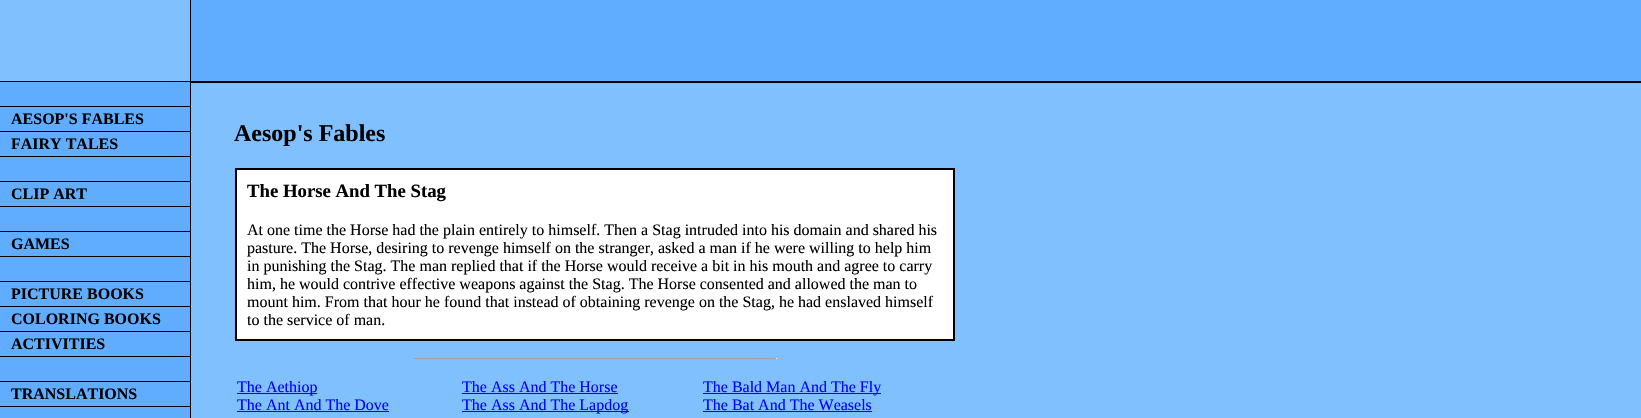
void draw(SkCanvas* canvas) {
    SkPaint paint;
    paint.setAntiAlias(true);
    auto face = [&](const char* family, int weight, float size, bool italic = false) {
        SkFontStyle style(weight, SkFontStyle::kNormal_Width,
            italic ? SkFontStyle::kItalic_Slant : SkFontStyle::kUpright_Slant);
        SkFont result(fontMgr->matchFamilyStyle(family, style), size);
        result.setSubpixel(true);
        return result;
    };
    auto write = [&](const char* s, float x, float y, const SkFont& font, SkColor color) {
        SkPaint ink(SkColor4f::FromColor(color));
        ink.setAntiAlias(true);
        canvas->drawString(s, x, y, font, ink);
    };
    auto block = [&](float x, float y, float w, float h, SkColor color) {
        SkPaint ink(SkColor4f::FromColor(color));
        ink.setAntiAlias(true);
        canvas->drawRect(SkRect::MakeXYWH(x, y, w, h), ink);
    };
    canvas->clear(SkColorSetRGB(128, 192, 254));
    block(190, 0, 1, 81, SK_ColorBLACK);
    block(191, 0, 1450, 81, SkColorSetRGB(96, 172, 254));
    block(0, 81, 1641, 1, SK_ColorBLACK);
    block(0, 82, 190, 336, SkColorSetRGB(96, 172, 254));
    block(0, 106, 190, 1, SK_ColorBLACK);
    auto kFont1 = face("Liberation Serif", 700, 16);
    write("AESOP'S FABLES", 11, 124, kFont1, SK_ColorBLACK);
    block(0, 131, 190, 1, SK_ColorBLACK);
    write("FAIRY TALES", 11, 149, kFont1, SK_ColorBLACK);
    block(0, 156, 190, 1, SK_ColorBLACK);
    block(0, 181, 190, 1, SK_ColorBLACK);
    write("CLIP ART", 11, 199, kFont1, SK_ColorBLACK);
    block(0, 206, 190, 1, SK_ColorBLACK);
    block(0, 231, 190, 1, SK_ColorBLACK);
    write("GAMES", 11, 249, kFont1, SK_ColorBLACK);
    block(0, 256, 190, 1, SK_ColorBLACK);
    block(0, 281, 190, 1, SK_ColorBLACK);
    write("PICTURE BOOKS", 11, 299, kFont1, SK_ColorBLACK);
    block(0, 306, 190, 1, SK_ColorBLACK);
    write("COLORING BOOKS", 11, 324, kFont1, SK_ColorBLACK);
    block(0, 331, 190, 1, SK_ColorBLACK);
    write("ACTIVITIES", 11, 349, kFont1, SK_ColorBLACK);
    block(0, 356, 190, 1, SK_ColorBLACK);
    block(0, 381, 190, 1, SK_ColorBLACK);
    write("TRANSLATIONS", 11, 399, kFont1, SK_ColorBLACK);
    block(0, 406, 190, 1, SK_ColorBLACK);
    block(190, 82, 1, 336, SK_ColorBLACK);
    block(191, 82, 1450, 1, SK_ColorBLACK);
    auto kFont2 = face("Liberation Serif", 700, 24);
    write("Aesop's Fables", 234, 141, kFont2, SK_ColorBLACK);
    block(235, 168, 720, 173, SK_ColorBLACK);
    block(237, 170, 716, 169, SK_ColorWHITE);
    auto kFont3 = face("Liberation Serif", 700, 18.75f);
    write("The Horse And The Stag", 247, 197, kFont3, SK_ColorBLACK);
    auto kFont4 = face("Liberation Serif", 400, 16);
    write("At one time the Horse had the plain entirely to himself. Then a Stag intruded into his domain and shared his", 247, 235, kFont4, SK_ColorBLACK);
    write("pasture. The Horse, desiring to revenge himself on the stranger, asked a man if he were willing to help him", 247, 253, kFont4, SK_ColorBLACK);
    write("in punishing the Stag. The man replied that if the Horse would receive a bit in his mouth and agree to carry", 247, 271, kFont4, SK_ColorBLACK);
    write("him, he would contrive effective weapons against the Stag. The Horse consented and allowed the man to", 247, 289, kFont4, SK_ColorBLACK);
    write("mount him. From that hour he found that instead of obtaining revenge on the Stag, he had enslaved himself", 247, 307, kFont4, SK_ColorBLACK);
    write("to the service of man.", 247, 325, kFont4, SK_ColorBLACK);
    block(414, 358, 363, 1, SkColorSetRGB(159, 159, 159));
    block(776, 358, 1, 1, SkColorSetRGB(238, 238, 238));
    block(237, 393, 80, 1, SkColorSetRGB(0, 0, 255));
    write("The Aethiop", 237, 392, kFont4, SkColorSetRGB(0, 0, 255));
    write("The Ant And The Dove", 237, 410, kFont4, SkColorSetRGB(0, 0, 255));
    block(237, 411, 152, 1, SkColorSetRGB(0, 0, 255));
    write("The Ass And The Horse", 462, 392, kFont4, SkColorSetRGB(0, 0, 255));
    block(462, 393, 156, 1, SkColorSetRGB(0, 0, 255));
    block(462, 411, 167, 1, SkColorSetRGB(0, 0, 255));
    write("The Ass And The Lapdog", 462, 410, kFont4, SkColorSetRGB(0, 0, 255));
    block(703, 393, 178, 1, SkColorSetRGB(0, 0, 255));
    write("The Bald Man And The Fly", 703, 392, kFont4, SkColorSetRGB(0, 0, 255));
    write("The Bat And The Weasels", 703, 410, kFont4, SkColorSetRGB(0, 0, 255));
    block(703, 411, 169, 1, SkColorSetRGB(0, 0, 255));
}
